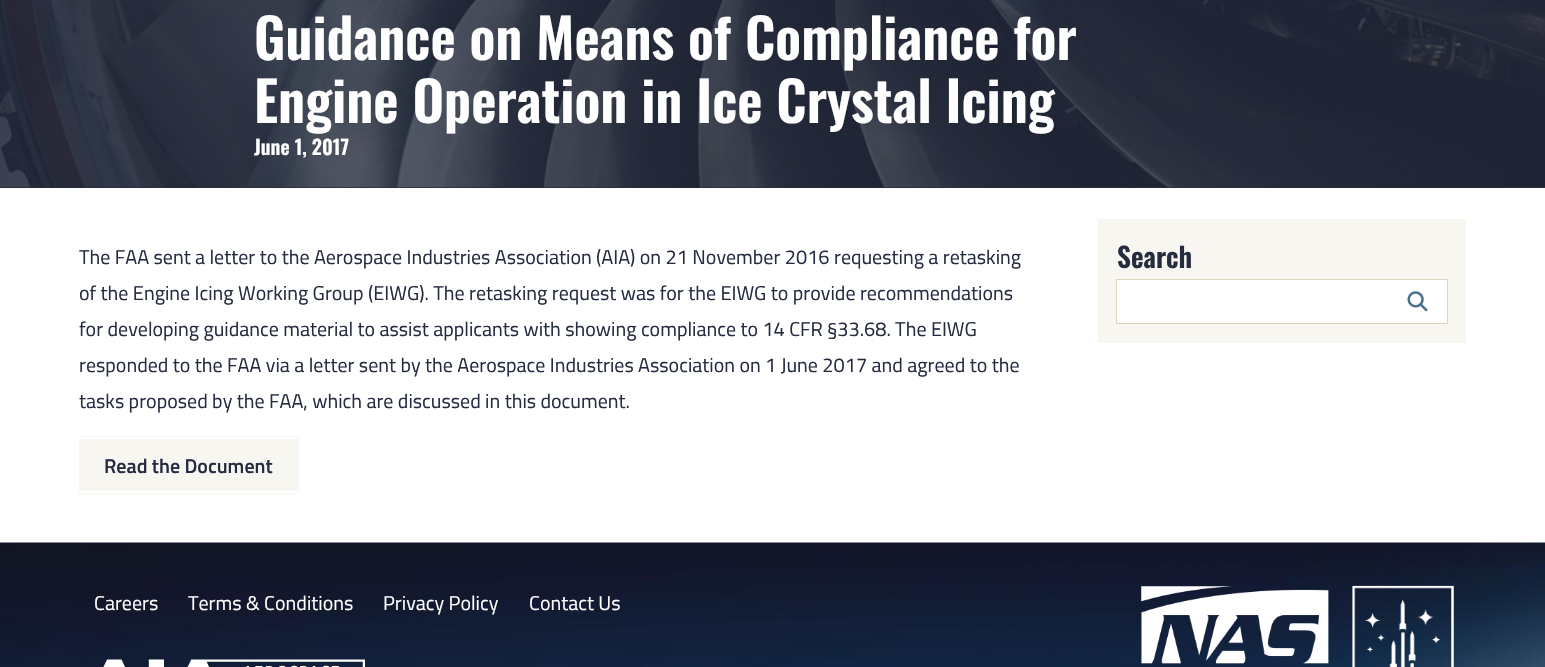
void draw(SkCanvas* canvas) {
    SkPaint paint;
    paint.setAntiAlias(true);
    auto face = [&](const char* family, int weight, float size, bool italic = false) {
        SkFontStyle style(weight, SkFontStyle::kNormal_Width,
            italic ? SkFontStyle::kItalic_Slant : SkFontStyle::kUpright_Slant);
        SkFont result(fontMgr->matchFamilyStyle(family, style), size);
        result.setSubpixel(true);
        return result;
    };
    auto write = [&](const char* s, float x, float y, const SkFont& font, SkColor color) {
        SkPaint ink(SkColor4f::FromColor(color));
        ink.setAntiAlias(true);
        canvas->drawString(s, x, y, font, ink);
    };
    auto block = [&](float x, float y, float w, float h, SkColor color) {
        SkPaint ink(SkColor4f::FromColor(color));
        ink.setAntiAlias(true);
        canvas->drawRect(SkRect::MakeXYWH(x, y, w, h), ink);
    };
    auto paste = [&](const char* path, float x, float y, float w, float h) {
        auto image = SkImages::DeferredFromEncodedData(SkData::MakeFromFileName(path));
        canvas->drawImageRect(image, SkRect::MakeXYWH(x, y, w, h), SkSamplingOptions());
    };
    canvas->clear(SK_ColorWHITE);
    block(0, 0, 1545, 188, SkColorSetRGB(37, 44, 65));
    paste("pic1.png", 0, 0, 1545, 188);
    auto kFont1 = face("Oswald", 600, 55);
    write("Guidance on Means of Compliance for", 254, 60, kFont1, SK_ColorWHITE);
    write("Engine Operation in Ice Crystal Icing", 254, 123, kFont1, SK_ColorWHITE);
    auto kFont2 = face("Oswald", 600, 20);
    write("June 1, 2017", 254, 155, kFont2, SK_ColorWHITE);
    auto kFont3 = face("Titillium Web", 400, 20);
    write("The FAA sent a letter to the Aerospace Industries Association (AIA) on 21 November 2016 requesting a retasking", 79, 264, kFont3, SkColorSetRGB(37, 44, 65));
    write("of the Engine Icing Working Group (EIWG). The retasking request was for the EIWG to provide recommendations", 79, 300, kFont3, SkColorSetRGB(37, 44, 65));
    write("for developing guidance material to assist applicants with showing compliance to 14 CFR §33.68. The EIWG", 79, 336, kFont3, SkColorSetRGB(37, 44, 65));
    write("responded to the FAA via a letter sent by the Aerospace Industries Association on 1 June 2017 and agreed to the", 79, 372, kFont3, SkColorSetRGB(37, 44, 65));
    write("tasks proposed by the FAA, which are discussed in this document.", 79, 408, kFont3, SkColorSetRGB(37, 44, 65));
    block(79, 439, 219, 52, SkColorSetRGB(248, 246, 241));
    canvas->save();
    canvas->clipRect(SkRect::MakeXYWH(79, 219, 944, 292));
    paint.setStyle(SkPaint::kStroke_Style);
    paint.setStrokeWidth(1);
    paint.setColor(SkColorSetRGB(248, 246, 241));
    canvas->drawRect(SkRect::MakeXYWH(76.5f, 436.5f, 223, 57), paint);
    canvas->restore();
    auto kFont4 = face("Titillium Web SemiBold", 600, 20);
    write("Read the Document", 104, 473, kFont4, SkColorSetRGB(37, 44, 65));
    block(1098, 219, 368, 124, SkColorSetRGB(248, 246, 241));
    auto kFont5 = face("Oswald", 600, 27.5f);
    write("Search", 1117, 268, kFont5, SkColorSetRGB(37, 44, 65));
    paint.setStyle(SkPaint::kFill_Style);
    paint.setColor(SK_ColorWHITE);
    canvas->drawRect(SkRect::MakeXYWH(1116.5f, 279.5f, 331, 44), paint);
    paint.setStyle(SkPaint::kStroke_Style);
    paint.setColor(SkColorSetRGB(220, 213, 185));
    canvas->drawRect(SkRect::MakeXYWH(1116.5f, 279.5f, 331, 44), paint);
    paste("pic2.png", 1407, 291, 21, 21);
    paste("pic3.png", 0, 542, 1545, 125);
    write("Careers", 94, 610, kFont3, SK_ColorWHITE);
    write("Terms & Conditions", 188, 610, kFont3, SK_ColorWHITE);
    write("Privacy Policy", 383, 610, kFont3, SK_ColorWHITE);
    write("Contact Us", 529, 610, kFont3, SK_ColorWHITE);
    paste("pic4.png", 103, 659, 262, 8);
    paste("pic5.png", 1141, 586, 188, 78);
    paste("pic6.png", 1352, 585, 102, 82);
}
